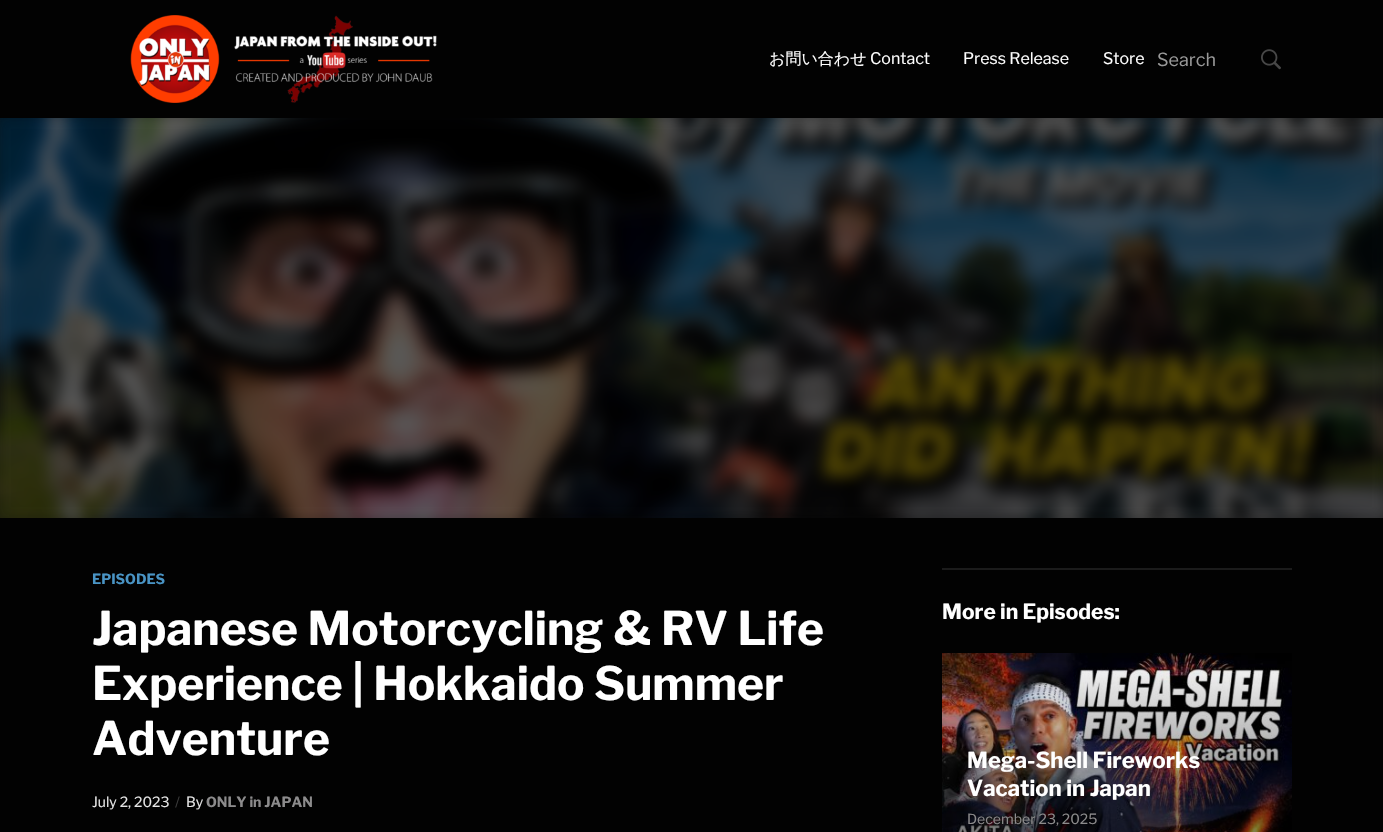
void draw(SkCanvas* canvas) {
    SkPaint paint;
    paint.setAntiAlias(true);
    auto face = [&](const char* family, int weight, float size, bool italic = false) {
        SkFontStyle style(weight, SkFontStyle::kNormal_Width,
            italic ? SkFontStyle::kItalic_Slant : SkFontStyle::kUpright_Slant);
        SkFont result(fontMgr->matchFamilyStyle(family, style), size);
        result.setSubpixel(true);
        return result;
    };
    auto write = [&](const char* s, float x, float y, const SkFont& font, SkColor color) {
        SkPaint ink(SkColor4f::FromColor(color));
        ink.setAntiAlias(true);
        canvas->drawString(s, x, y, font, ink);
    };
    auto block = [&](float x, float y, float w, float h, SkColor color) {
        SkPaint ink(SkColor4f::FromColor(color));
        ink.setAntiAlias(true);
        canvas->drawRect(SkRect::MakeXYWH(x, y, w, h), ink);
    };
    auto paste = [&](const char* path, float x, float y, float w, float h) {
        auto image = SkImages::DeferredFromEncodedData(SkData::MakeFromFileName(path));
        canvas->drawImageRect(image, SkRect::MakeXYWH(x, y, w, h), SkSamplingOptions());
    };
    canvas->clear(SkColorSetRGB(2, 2, 2));
    paste("pic1.png", 130, 15, 307, 88);
    auto kFont1 = face("WenQuanYi Zen Hei", 500, 16);
    write("お問い合わせ", 769, 64, kFont1, SK_ColorWHITE);
    auto kFont2 = face("Libre Franklin", 400, 16);
    write("Contact", 870, 64, kFont2, SK_ColorWHITE);
    write("Press Release", 963, 64, kFont2, SK_ColorWHITE);
    write("Store", 1103, 64, kFont2, SK_ColorWHITE);
    auto kFont3 = face("Libre Franklin", 400, 18);
    write("Search", 1157, 66, kFont3, SkColorSetRGB(153, 153, 153));
    paste("pic2.png", 1261, 49, 20, 21);
    canvas->save();
    canvas->clipRect(SkRect::MakeXYWH(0, 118, 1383, 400));
    paint.setColor(SkColorSetRGB(12, 12, 12));
    paint.setMaskFilter(SkMaskFilter::MakeBlur(kNormal_SkBlurStyle, 8));
    canvas->drawRect(SkRect::MakeXYWH(-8, 110, 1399, 416), paint);
    paint.setMaskFilter(nullptr);
    canvas->restore();
    paste("pic3.png", 0, 118, 1383, 400);
    auto kFont4 = face("Libre Franklin", 700, 14);
    write("EPISODES", 92, 584, kFont4, SkColorSetRGB(73, 148, 197));
    auto kFont5 = face("Libre Franklin", 700, 46);
    write("Japanese Motorcycling & RV Life", 92, 645, kFont5, SK_ColorWHITE);
    write("Experience | Hokkaido Summer", 92, 700, kFont5, SK_ColorWHITE);
    write("Adventure", 92, 755, kFont5, SK_ColorWHITE);
    auto kFont6 = face("Libre Franklin", 400, 14);
    write("July 2, 2023", 92, 807, kFont6, SkColorSetRGB(230, 230, 230));
    write("/", 175, 807, kFont6, SkColorSetRGB(59, 59, 59));
    write("By", 186, 807, kFont6, SkColorSetRGB(230, 230, 230));
    write("ONLY in JAPAN", 206, 807, kFont4, SkColorSetRGB(140, 139, 140));
    block(942, 568, 350, 2, SkColorSetRGB(27, 27, 27));
    auto kFont7 = face("Libre Franklin", 700, 21);
    write("More in Episodes:", 942, 619, kFont7, SK_ColorWHITE);
    paste("pic4.png", 942, 653, 350, 179);
    auto kFont8 = face("Libre Franklin", 700, 22);
    write("Mega-Shell Fireworks", 967, 768, kFont8, SK_ColorWHITE);
    write("Vacation in Japan", 967, 796, kFont8, SK_ColorWHITE);
    write("December 23, 2025", 967, 824, kFont6, SkColorSetRGB(140, 139, 140));
}
